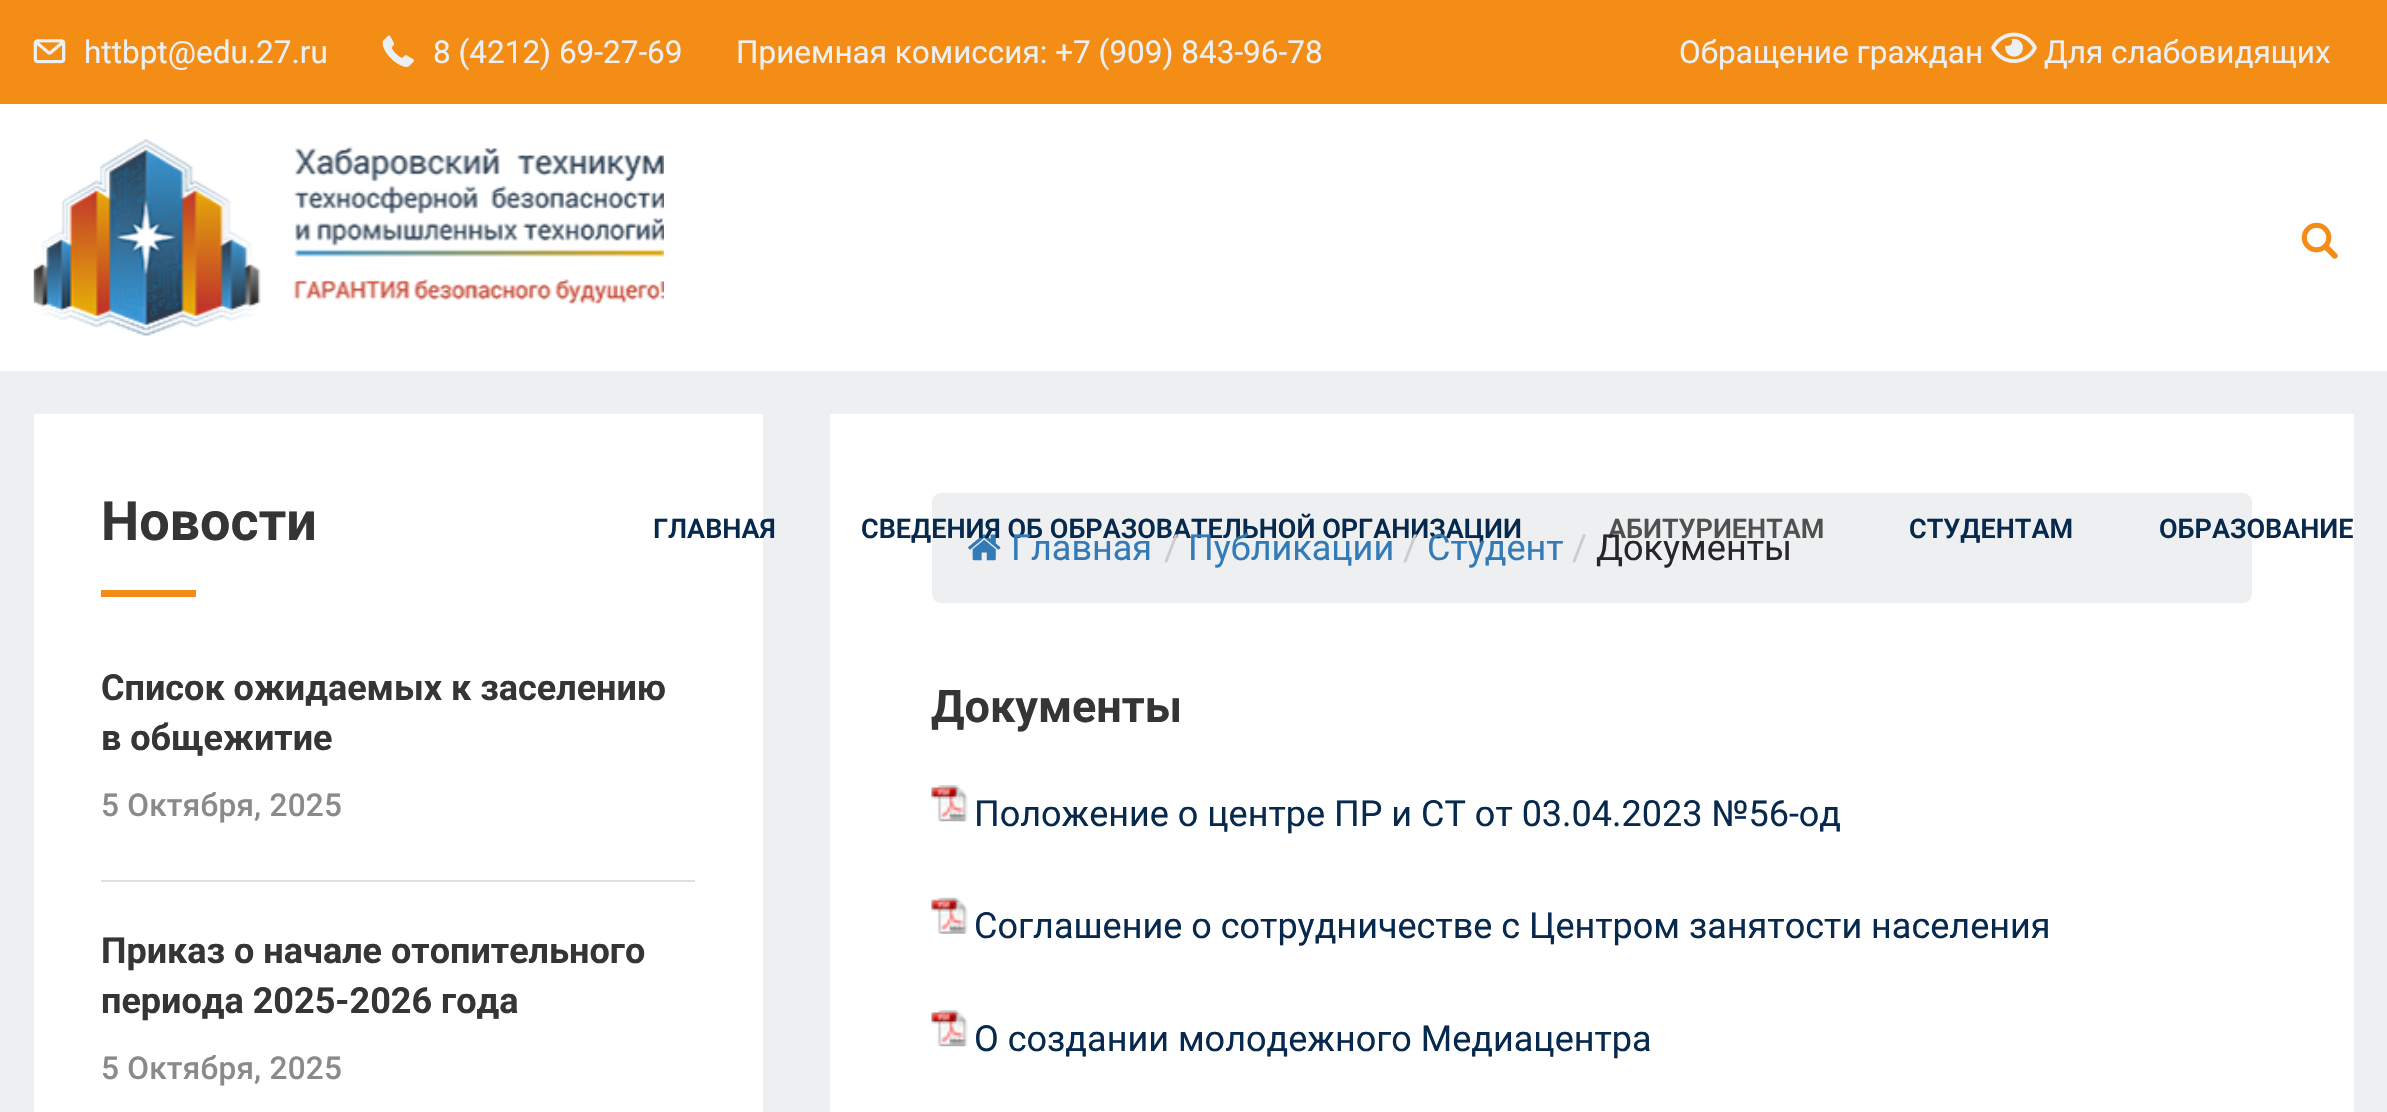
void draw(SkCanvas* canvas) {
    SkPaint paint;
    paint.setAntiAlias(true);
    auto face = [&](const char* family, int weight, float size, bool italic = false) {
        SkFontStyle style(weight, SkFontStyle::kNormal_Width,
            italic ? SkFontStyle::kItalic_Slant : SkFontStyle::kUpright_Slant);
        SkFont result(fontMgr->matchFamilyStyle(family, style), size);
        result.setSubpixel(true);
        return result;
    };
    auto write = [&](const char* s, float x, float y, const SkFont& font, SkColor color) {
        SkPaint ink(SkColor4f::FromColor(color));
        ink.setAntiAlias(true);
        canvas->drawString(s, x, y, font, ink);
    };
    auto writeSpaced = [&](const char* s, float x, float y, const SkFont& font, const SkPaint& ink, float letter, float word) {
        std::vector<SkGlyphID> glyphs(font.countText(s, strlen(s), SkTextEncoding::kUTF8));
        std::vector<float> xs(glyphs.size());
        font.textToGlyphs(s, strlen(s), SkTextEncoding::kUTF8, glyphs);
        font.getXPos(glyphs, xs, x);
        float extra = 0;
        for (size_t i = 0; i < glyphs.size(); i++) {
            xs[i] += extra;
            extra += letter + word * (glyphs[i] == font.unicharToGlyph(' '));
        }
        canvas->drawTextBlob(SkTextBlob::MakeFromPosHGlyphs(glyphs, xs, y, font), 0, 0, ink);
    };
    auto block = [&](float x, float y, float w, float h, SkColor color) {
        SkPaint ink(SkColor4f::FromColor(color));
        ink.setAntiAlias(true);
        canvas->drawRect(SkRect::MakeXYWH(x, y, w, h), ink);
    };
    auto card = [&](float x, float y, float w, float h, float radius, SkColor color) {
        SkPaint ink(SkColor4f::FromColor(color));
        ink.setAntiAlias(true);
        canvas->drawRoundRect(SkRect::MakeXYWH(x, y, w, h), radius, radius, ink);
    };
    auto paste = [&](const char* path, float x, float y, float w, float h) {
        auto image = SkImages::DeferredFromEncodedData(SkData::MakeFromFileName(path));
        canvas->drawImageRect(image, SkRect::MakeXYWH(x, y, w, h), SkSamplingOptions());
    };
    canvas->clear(SkColorSetRGB(237, 240, 242));
    block(0, 104, 2387, 267, SK_ColorWHITE);
    block(0, 0, 2387, 104, SkColorSetRGB(244, 141, 22));
    paste("pic1.png", 33, 39, 33, 25);
    auto kFont1 = face("Roboto", 400, 31.5f);
    write("httbpt@edu.27.ru", 84, 63, kFont1, SkColorSetRGB(237, 240, 242));
    paste("pic2.png", 382, 35, 32, 32);
    write("8 (4212) 69-27-69", 433, 63, kFont1, SkColorSetRGB(237, 240, 242));
    write("Приемная комиссия: +7 (909) 843-96-78", 736, 63, kFont1, SkColorSetRGB(237, 240, 242));
    write("Обращение граждан", 1679, 63, kFont1, SkColorSetRGB(237, 240, 242));
    paste("pic3.png", 1991, 32, 46, 31);
    write("Для слабовидящих", 2044, 63, kFont1, SkColorSetRGB(237, 240, 242));
    paste("pic4.png", 33, 139, 631, 197);
    paste("pic5.png", 2301, 222, 37, 37);
    block(34, 414, 729, 698, SK_ColorWHITE);
    auto kFont2 = face("Roboto", 600, 27);
    write("ГЛАВНАЯ", 653, 538, kFont2, SkColorSetRGB(7, 41, 77));
    block(830, 414, 1524, 698, SK_ColorWHITE);
    card(932, 493, 1320, 110, 9, SkColorSetRGB(237, 239, 240));
    paste("pic6.png", 968, 534, 33, 27);
    write("СВЕДЕНИЯ ОБ ОБРАЗОВАТЕЛЬНОЙ ОРГАНИЗАЦИИ", 861, 538, kFont2, SkColorSetRGB(7, 41, 77));
    write("АБИТУРИЕНТАМ", 1608, 538, kFont2, SkColorSetRGB(80, 80, 80));
    write("СТУДЕНТАМ", 1909, 538, kFont2, SkColorSetRGB(7, 41, 77));
    write("ОБРАЗОВАНИЕ", 2159, 538, kFont2, SkColorSetRGB(7, 41, 77));
    auto kFont3 = face("Roboto", 700, 54);
    write("Новости", 101, 540, kFont3, SkColorSetRGB(53, 53, 53));
    block(101, 590, 95, 7, SkColorSetRGB(244, 141, 22));
    auto kFont4 = face("Roboto", 700, 36);
    write("Список ожидаемых к заселению", 101, 700, kFont4, SkColorSetRGB(53, 53, 53));
    write("в общежитие", 101, 750, kFont4, SkColorSetRGB(53, 53, 53));
    auto kFont5 = face("Roboto", 500, 31.5f);
    paint.setColor(SkColorSetRGB(138, 138, 138));
    writeSpaced("5 Октября, 2025", 101, 816, kFont5, paint, 0.25f, 0);
    block(101, 880, 594, 2, SkColorSetRGB(224, 224, 224));
    write("Приказ о начале отопительного", 101, 963, kFont4, SkColorSetRGB(53, 53, 53));
    write("периода 2025-2026 года", 101, 1013, kFont4, SkColorSetRGB(53, 53, 53));
    writeSpaced("5 Октября, 2025", 101, 1079, kFont5, paint, 0.25f, 0);
    auto kFont6 = face("Roboto", 400, 36);
    write("Главная", 1011, 560, kFont6, SkColorSetRGB(51, 122, 183));
    write("/", 1164, 560, kFont6, SkColorSetRGB(204, 204, 204));
    write("Публикации", 1188, 560, kFont6, SkColorSetRGB(51, 122, 183));
    write("/", 1403, 560, kFont6, SkColorSetRGB(204, 204, 204));
    write("Студент", 1427, 560, kFont6, SkColorSetRGB(51, 122, 183));
    write("/", 1572, 560, kFont6, SkColorSetRGB(204, 204, 204));
    write("Документы", 1596, 560, kFont6, SkColorSetRGB(39, 39, 42));
    auto kFont7 = face("Roboto", 700, 45);
    write("Документы", 931, 722, kFont7, SkColorSetRGB(53, 53, 53));
    paste("pic7.png", 931, 785, 37, 37);
    write("Положение о центре ПР и СТ от 03.04.2023 №56-од", 974, 826, kFont6, SkColorSetRGB(7, 41, 77));
    paste("pic8.png", 931, 897, 37, 37);
    write("Соглашение о сотрудничестве с Центром занятости населения", 974, 938, kFont6, SkColorSetRGB(7, 41, 77));
    paste("pic7.png", 931, 1010, 37, 37);
    write("О создании молодежного Медиацентра", 974, 1051, kFont6, SkColorSetRGB(7, 41, 77));
}
